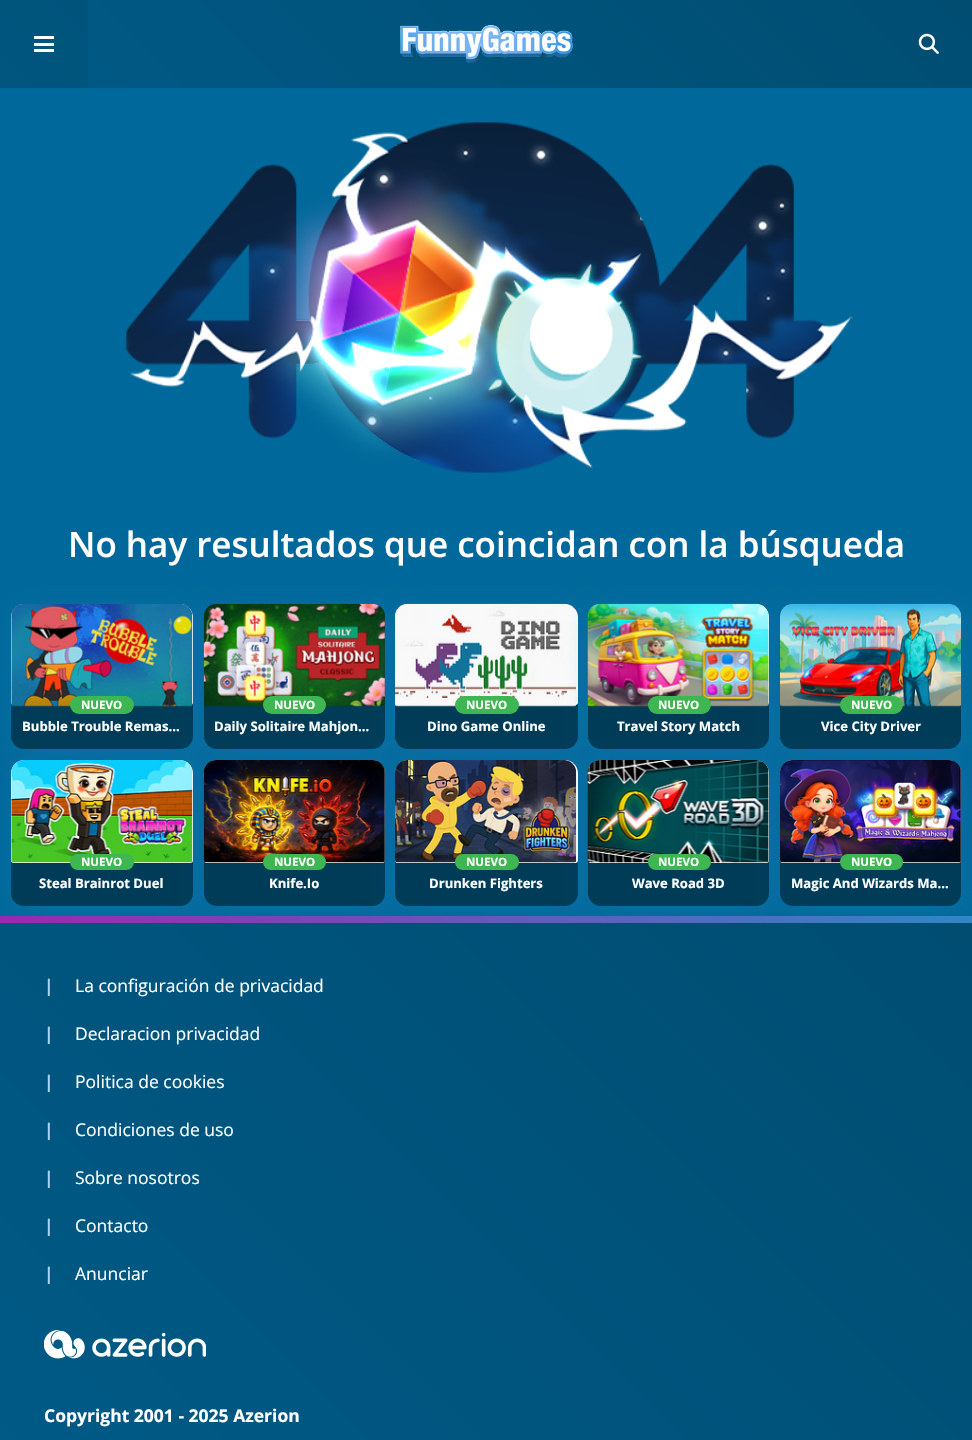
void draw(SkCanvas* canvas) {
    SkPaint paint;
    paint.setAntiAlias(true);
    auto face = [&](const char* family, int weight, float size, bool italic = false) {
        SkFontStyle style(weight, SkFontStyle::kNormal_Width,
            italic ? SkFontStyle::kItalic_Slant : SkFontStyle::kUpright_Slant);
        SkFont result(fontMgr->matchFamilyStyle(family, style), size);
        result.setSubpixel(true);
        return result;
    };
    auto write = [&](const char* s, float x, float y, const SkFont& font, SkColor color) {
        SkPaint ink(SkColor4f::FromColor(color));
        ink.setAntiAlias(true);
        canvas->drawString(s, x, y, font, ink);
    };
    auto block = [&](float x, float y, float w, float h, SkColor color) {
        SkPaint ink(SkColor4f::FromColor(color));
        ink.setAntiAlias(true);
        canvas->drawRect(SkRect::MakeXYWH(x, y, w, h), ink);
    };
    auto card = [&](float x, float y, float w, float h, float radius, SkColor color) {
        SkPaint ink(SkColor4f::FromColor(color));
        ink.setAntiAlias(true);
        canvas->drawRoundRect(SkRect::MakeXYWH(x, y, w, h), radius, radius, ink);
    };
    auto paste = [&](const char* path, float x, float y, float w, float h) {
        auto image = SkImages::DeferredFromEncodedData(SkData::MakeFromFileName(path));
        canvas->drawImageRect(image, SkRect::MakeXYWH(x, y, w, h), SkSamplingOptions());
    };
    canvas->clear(SkColorSetRGB(0, 104, 154));
    {
        const SkColor colors[] = {SkColorSetRGB(0, 90, 134), SkColorSetRGB(0, 77, 114)};
        const float stops[] = {0, 1};
        const SkPoint ends[] = {{221, 309}, {751, -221}};
        paint.setShader(SkGradientShader::MakeLinear(ends, colors, stops, 2, SkTileMode::kClamp));
        paint.setAlpha(255);
    }
    canvas->drawRect(SkRect::MakeXYWH(88, 0, 884, 88), paint);
    {
        const SkColor colors[] = {SkColorSetRGB(0, 86, 127), SkColorSetRGB(0, 73, 108)};
        const float stops[] = {0, 1};
        const SkPoint ends[] = {{221, 309}, {751, -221}};
        paint.setShader(SkGradientShader::MakeLinear(ends, colors, stops, 2, SkTileMode::kClamp));
        paint.setAlpha(255);
    }
    canvas->drawRect(SkRect::MakeXYWH(0, 0, 88, 88), paint);
    block(34, 36, 20, 3, SK_ColorWHITE);
    block(34, 43, 20, 3, SK_ColorWHITE);
    block(34, 49, 20, 3, SK_ColorWHITE);
    paste("pic1.png", 400, 25, 173, 38);
    paste("pic2.png", 918, 33, 21, 21);
    paste("pic3.png", 126, 122, 727, 351);
    auto kFont1 = face("Open Sans", 600, 35);
    write("No hay resultados que coincidan con la búsqueda", 68, 557, kFont1, SK_ColorWHITE);
    paint.setShader(nullptr);
    paint.setColor(SkColorSetARGB(128, 18, 118, 175));
    paint.setMaskFilter(SkMaskFilter::MakeBlur(kNormal_SkBlurStyle, 12.5f));
    canvas->drawRoundRect(SkRect::MakeXYWH(16, 609, 182, 145), 13, 13, paint);
    paint.setMaskFilter(nullptr);
    card(11, 604, 182, 145, 13, SkColorSetRGB(0, 59, 88));
    paint.setColor(SkColorSetRGB(250, 250, 250));
    canvas->drawPath(SkPathBuilder().moveTo(24, 604).lineTo(180, 604).cubicTo(187, 604, 193, 610, 193, 617).lineTo(193, 702.5f).cubicTo(193, 704, 192, 705, 190.5f, 705).lineTo(13.5f, 705).cubicTo(12, 705, 11, 704, 11, 702.5f).lineTo(11, 617).cubicTo(11, 610, 17, 604, 24, 604).close().detach(), paint);
    paste("pic4.png", 11, 604, 182, 103);
    card(70, 696, 64, 18, 9, SkColorSetRGB(62, 183, 82));
    auto kFont2 = face("Open Sans", 700, 11.5f);
    write("NUEVO", 81, 709, kFont2, SK_ColorWHITE);
    auto kFont3 = face("Open Sans", 700, 13.1f);
    write("Bubble Trouble Remas…", 22, 731, kFont3, SK_ColorWHITE);
    paint.setColor(SkColorSetARGB(128, 18, 118, 175));
    paint.setMaskFilter(SkMaskFilter::MakeBlur(kNormal_SkBlurStyle, 12.5f));
    canvas->drawRoundRect(SkRect::MakeXYWH(209, 609, 181, 145), 13, 13, paint);
    paint.setMaskFilter(nullptr);
    card(204, 604, 181, 145, 13, SkColorSetRGB(0, 59, 88));
    paste("pic5.png", 203, 603, 182, 104);
    card(263, 696, 63, 18, 9, SkColorSetRGB(62, 183, 82));
    write("NUEVO", 274, 709, kFont2, SK_ColorWHITE);
    write("Daily Solitaire Mahjon…", 214, 731, kFont3, SK_ColorWHITE);
    paint.setMaskFilter(SkMaskFilter::MakeBlur(kNormal_SkBlurStyle, 12.5f));
    canvas->drawRoundRect(SkRect::MakeXYWH(400, 609, 183, 145), 13, 13, paint);
    paint.setMaskFilter(nullptr);
    card(395, 604, 183, 145, 13, SkColorSetRGB(0, 59, 88));
    paint.setColor(SkColorSetRGB(250, 250, 250));
    canvas->drawPath(SkPathBuilder().moveTo(408, 604).lineTo(565, 604).cubicTo(572, 604, 578, 610, 578, 617).lineTo(578, 702.5f).cubicTo(578, 704, 577, 705, 575.5f, 705).lineTo(397.5f, 705).cubicTo(396, 705, 395, 704, 395, 702.5f).lineTo(395, 617).cubicTo(395, 610, 401, 604, 408, 604).close().detach(), paint);
    paste("pic6.png", 395, 603, 181, 104);
    card(455, 696, 64, 18, 9, SkColorSetRGB(62, 183, 82));
    write("NUEVO", 466, 709, kFont2, SK_ColorWHITE);
    write("Dino Game Online", 427, 731, kFont3, SK_ColorWHITE);
    paint.setColor(SkColorSetARGB(128, 18, 118, 175));
    paint.setMaskFilter(SkMaskFilter::MakeBlur(kNormal_SkBlurStyle, 12.5f));
    canvas->drawRoundRect(SkRect::MakeXYWH(593, 609, 181, 145), 13, 13, paint);
    paint.setMaskFilter(nullptr);
    card(588, 604, 181, 145, 13, SkColorSetRGB(0, 59, 88));
    paint.setColor(SkColorSetRGB(250, 250, 250));
    canvas->drawPath(SkPathBuilder().moveTo(601, 604).lineTo(756, 604).cubicTo(763, 604, 769, 610, 769, 617).lineTo(769, 702.5f).cubicTo(769, 704, 768, 705, 766.5f, 705).lineTo(590.5f, 705).cubicTo(589, 705, 588, 704, 588, 702.5f).lineTo(588, 617).cubicTo(588, 610, 594, 604, 601, 604).close().detach(), paint);
    paste("pic7.png", 587, 603, 182, 104);
    card(648, 696, 63, 18, 9, SkColorSetRGB(62, 183, 82));
    write("NUEVO", 658, 709, kFont2, SK_ColorWHITE);
    write("Travel Story Match", 617, 731, kFont3, SK_ColorWHITE);
    paint.setColor(SkColorSetARGB(128, 18, 118, 175));
    paint.setMaskFilter(SkMaskFilter::MakeBlur(kNormal_SkBlurStyle, 12.5f));
    canvas->drawRoundRect(SkRect::MakeXYWH(785, 609, 181, 145), 13, 13, paint);
    paint.setMaskFilter(nullptr);
    card(780, 604, 181, 145, 13, SkColorSetRGB(0, 59, 88));
    paste("pic8.png", 780, 603, 181, 104);
    card(840, 696, 63, 18, 9, SkColorSetRGB(62, 183, 82));
    write("NUEVO", 851, 709, kFont2, SK_ColorWHITE);
    write("Vice City Driver", 821, 731, kFont3, SK_ColorWHITE);
    paint.setMaskFilter(SkMaskFilter::MakeBlur(kNormal_SkBlurStyle, 12.5f));
    canvas->drawRoundRect(SkRect::MakeXYWH(16, 765, 182, 146), 13, 13, paint);
    paint.setMaskFilter(nullptr);
    card(11, 760, 182, 146, 13, SkColorSetRGB(0, 59, 88));
    paint.setColor(SkColorSetRGB(250, 250, 250));
    canvas->drawPath(SkPathBuilder().moveTo(24, 760).lineTo(180, 760).cubicTo(187, 760, 193, 766, 193, 773).lineTo(193, 860.5f).cubicTo(193, 862, 192, 863, 190.5f, 863).lineTo(13.5f, 863).cubicTo(12, 863, 11, 862, 11, 860.5f).lineTo(11, 773).cubicTo(11, 766, 17, 760, 24, 760).close().detach(), paint);
    paste("pic9.png", 11, 760, 182, 103);
    card(70, 854, 64, 16, 8, SkColorSetRGB(62, 183, 82));
    write("NUEVO", 81, 866, kFont2, SK_ColorWHITE);
    write("Steal Brainrot Duel", 39, 888, kFont3, SK_ColorWHITE);
    paint.setColor(SkColorSetARGB(128, 18, 118, 175));
    paint.setMaskFilter(SkMaskFilter::MakeBlur(kNormal_SkBlurStyle, 12.5f));
    canvas->drawRoundRect(SkRect::MakeXYWH(209, 765, 181, 146), 13, 13, paint);
    paint.setMaskFilter(nullptr);
    card(204, 760, 181, 146, 13, SkColorSetRGB(0, 59, 88));
    paint.setColor(SkColorSetRGB(250, 250, 250));
    canvas->drawPath(SkPathBuilder().moveTo(217, 760).lineTo(372, 760).cubicTo(379, 760, 385, 766, 385, 773).lineTo(385, 860.5f).cubicTo(385, 862, 384, 863, 382.5f, 863).lineTo(206.5f, 863).cubicTo(205, 863, 204, 862, 204, 860.5f).lineTo(204, 773).cubicTo(204, 766, 210, 760, 217, 760).close().detach(), paint);
    paste("pic10.png", 203, 760, 182, 103);
    card(263, 854, 63, 16, 8, SkColorSetRGB(62, 183, 82));
    write("NUEVO", 274, 866, kFont2, SK_ColorWHITE);
    write("Knife.Io", 269, 888, kFont3, SK_ColorWHITE);
    paint.setColor(SkColorSetARGB(128, 18, 118, 175));
    paint.setMaskFilter(SkMaskFilter::MakeBlur(kNormal_SkBlurStyle, 12.5f));
    canvas->drawRoundRect(SkRect::MakeXYWH(400, 765, 183, 146), 13, 13, paint);
    paint.setMaskFilter(nullptr);
    card(395, 760, 183, 146, 13, SkColorSetRGB(0, 59, 88));
    paint.setColor(SkColorSetRGB(250, 250, 250));
    canvas->drawPath(SkPathBuilder().moveTo(408, 760).lineTo(565, 760).cubicTo(572, 760, 578, 766, 578, 773).lineTo(578, 860.5f).cubicTo(578, 862, 577, 863, 575.5f, 863).lineTo(397.5f, 863).cubicTo(396, 863, 395, 862, 395, 860.5f).lineTo(395, 773).cubicTo(395, 766, 401, 760, 408, 760).close().detach(), paint);
    paste("pic11.png", 395, 760, 181, 103);
    card(455, 854, 64, 16, 8, SkColorSetRGB(62, 183, 82));
    write("NUEVO", 466, 866, kFont2, SK_ColorWHITE);
    write("Drunken Fighters", 429, 888, kFont3, SK_ColorWHITE);
    paint.setColor(SkColorSetARGB(128, 18, 118, 175));
    paint.setMaskFilter(SkMaskFilter::MakeBlur(kNormal_SkBlurStyle, 12.5f));
    canvas->drawRoundRect(SkRect::MakeXYWH(593, 765, 181, 146), 13, 13, paint);
    paint.setMaskFilter(nullptr);
    card(588, 760, 181, 146, 13, SkColorSetRGB(0, 59, 88));
    paint.setColor(SkColorSetRGB(250, 250, 250));
    canvas->drawPath(SkPathBuilder().moveTo(601, 760).lineTo(756, 760).cubicTo(763, 760, 769, 766, 769, 773).lineTo(769, 860.5f).cubicTo(769, 862, 768, 863, 766.5f, 863).lineTo(590.5f, 863).cubicTo(589, 863, 588, 862, 588, 860.5f).lineTo(588, 773).cubicTo(588, 766, 594, 760, 601, 760).close().detach(), paint);
    paste("pic12.png", 587, 760, 182, 103);
    card(648, 854, 63, 16, 8, SkColorSetRGB(62, 183, 82));
    write("NUEVO", 658, 866, kFont2, SK_ColorWHITE);
    write("Wave Road 3D", 632, 888, kFont3, SK_ColorWHITE);
    paint.setColor(SkColorSetARGB(128, 18, 118, 175));
    paint.setMaskFilter(SkMaskFilter::MakeBlur(kNormal_SkBlurStyle, 12.5f));
    canvas->drawRoundRect(SkRect::MakeXYWH(785, 765, 181, 146), 13, 13, paint);
    paint.setMaskFilter(nullptr);
    card(780, 760, 181, 146, 13, SkColorSetRGB(0, 59, 88));
    paint.setColor(SkColorSetRGB(250, 250, 250));
    canvas->drawPath(SkPathBuilder().moveTo(793, 760).lineTo(948, 760).cubicTo(955, 760, 961, 766, 961, 773).lineTo(961, 860.5f).cubicTo(961, 862, 960, 863, 958.5f, 863).lineTo(782.5f, 863).cubicTo(781, 863, 780, 862, 780, 860.5f).lineTo(780, 773).cubicTo(780, 766, 786, 760, 793, 760).close().detach(), paint);
    paste("pic13.png", 780, 760, 181, 103);
    card(840, 854, 63, 16, 8, SkColorSetRGB(62, 183, 82));
    write("NUEVO", 851, 866, kFont2, SK_ColorWHITE);
    write("Magic And Wizards Ma…", 791, 888, kFont3, SK_ColorWHITE);
    {
        const SkColor colors[] = {SkColorSetRGB(0, 90, 134), SkColorSetRGB(0, 77, 114)};
        const float stops[] = {0, 1};
        const SkPoint ends[] = {{101, 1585}, {871, 815}};
        paint.setShader(SkGradientShader::MakeLinear(ends, colors, stops, 2, SkTileMode::kClamp));
        paint.setAlpha(255);
    }
    canvas->drawRect(SkRect::MakeXYWH(0, 923, 972, 517), paint);
    {
        const SkColor colors[] = {SkColorSetRGB(156, 40, 177), SkColorSetRGB(49, 135, 198)};
        const float stops[] = {0, 1};
        const SkPoint ends[] = {{242, 1164}, {731, 675}};
        paint.setShader(SkGradientShader::MakeLinear(ends, colors, stops, 2, SkTileMode::kClamp));
        paint.setAlpha(255);
    }
    canvas->drawRect(SkRect::MakeXYWH(0, 916, 972, 7), paint);
    auto kFont4 = face("Open Sans", 700, 17.5f);
    write("|", 44, 992, kFont4, SkColorSetRGB(174, 210, 243));
    auto kFont5 = face("Open Sans", 400, 17.5f);
    write("La configuración de privacidad", 75, 992, kFont5, SK_ColorWHITE);
    write("|", 44, 1040, kFont4, SkColorSetRGB(174, 210, 243));
    write("Declaracion privacidad", 75, 1040, kFont5, SK_ColorWHITE);
    write("|", 44, 1088, kFont4, SkColorSetRGB(174, 210, 243));
    write("Politica de cookies", 75, 1088, kFont5, SK_ColorWHITE);
    write("|", 44, 1136, kFont4, SkColorSetRGB(174, 210, 243));
    write("Condiciones de uso", 75, 1136, kFont5, SK_ColorWHITE);
    write("|", 44, 1184, kFont4, SkColorSetRGB(174, 210, 243));
    write("Sobre nosotros", 75, 1184, kFont5, SK_ColorWHITE);
    write("|", 44, 1232, kFont4, SkColorSetRGB(174, 210, 243));
    write("Contacto", 75, 1232, kFont5, SK_ColorWHITE);
    write("|", 44, 1280, kFont4, SkColorSetRGB(174, 210, 243));
    write("Anunciar", 75, 1280, kFont5, SK_ColorWHITE);
    paste("pic14.png", 44, 1330, 162, 29);
    write("Copyright 2001 - 2025 Azerion", 44, 1422, kFont4, SK_ColorWHITE);
}
